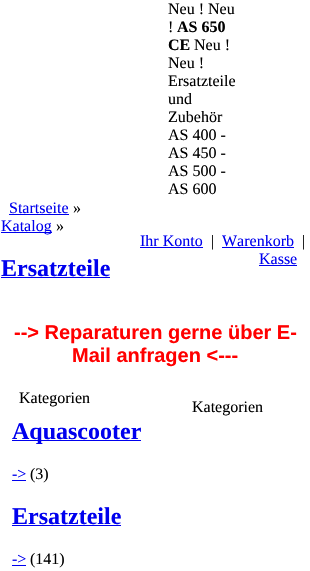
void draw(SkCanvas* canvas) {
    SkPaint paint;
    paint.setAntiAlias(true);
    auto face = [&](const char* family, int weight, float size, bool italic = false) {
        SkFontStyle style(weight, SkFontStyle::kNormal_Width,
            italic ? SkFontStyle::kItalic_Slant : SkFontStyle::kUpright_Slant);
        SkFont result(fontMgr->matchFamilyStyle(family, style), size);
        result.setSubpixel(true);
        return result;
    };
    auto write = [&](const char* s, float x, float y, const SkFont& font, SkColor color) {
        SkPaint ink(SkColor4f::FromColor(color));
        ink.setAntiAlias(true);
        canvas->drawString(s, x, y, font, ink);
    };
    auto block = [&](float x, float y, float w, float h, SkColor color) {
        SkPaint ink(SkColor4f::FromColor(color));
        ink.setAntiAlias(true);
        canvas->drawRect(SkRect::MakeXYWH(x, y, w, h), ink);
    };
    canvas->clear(SK_ColorWHITE);
    auto kFont1 = face("Liberation Serif", 400, 16);
    write("Neu ! Neu", 168, 14, kFont1, SK_ColorBLACK);
    write("!", 168, 32, kFont1, SK_ColorBLACK);
    auto kFont2 = face("Liberation Serif", 700, 16);
    write("AS 650", 177, 32, kFont2, SK_ColorBLACK);
    write("CE", 168, 50, kFont2, SK_ColorBLACK);
    write("Neu !", 194, 50, kFont1, SK_ColorBLACK);
    write("Neu !", 168, 68, kFont1, SK_ColorBLACK);
    write("Ersatzteile", 168, 86, kFont1, SK_ColorBLACK);
    write("und", 168, 104, kFont1, SK_ColorBLACK);
    write("Zubehör", 168, 122, kFont1, SK_ColorBLACK);
    write("AS 400 -", 168, 140, kFont1, SK_ColorBLACK);
    write("AS 450 -", 168, 158, kFont1, SK_ColorBLACK);
    write("AS 500 -", 168, 176, kFont1, SK_ColorBLACK);
    write("AS 600", 168, 194, kFont1, SK_ColorBLACK);
    write("Startseite", 9, 213, kFont1, SkColorSetRGB(0, 0, 238));
    block(9, 214, 60, 1, SkColorSetRGB(0, 0, 238));
    write("»", 73, 213, kFont1, SK_ColorBLACK);
    block(1, 232, 51, 1, SkColorSetRGB(0, 0, 238));
    write("Katalog", 1, 231, kFont1, SkColorSetRGB(0, 0, 238));
    write("»", 56, 231, kFont1, SK_ColorBLACK);
    auto kFont3 = face("Liberation Serif", 700, 24);
    write("Ersatzteile", 1, 276, kFont3, SkColorSetRGB(0, 0, 238));
    block(1, 277, 109, 1, SkColorSetRGB(0, 0, 238));
    write("Ihr Konto", 140, 246, kFont1, SkColorSetRGB(0, 0, 238));
    block(140, 247, 63, 1, SkColorSetRGB(0, 0, 238));
    write("|", 211, 246, kFont1, SK_ColorBLACK);
    write("Warenkorb", 222, 246, kFont1, SkColorSetRGB(0, 0, 238));
    block(222, 247, 72, 1, SkColorSetRGB(0, 0, 238));
    write("|", 302, 246, kFont1, SK_ColorBLACK);
    write("Kasse", 259, 264, kFont1, SkColorSetRGB(0, 0, 238));
    block(259, 265, 38, 1, SkColorSetRGB(0, 0, 238));
    auto kFont4 = face("Liberation Sans", 700, 20);
    write("--> Reparaturen gerne über E-", 14, 339, kFont4, SkColorSetRGB(255, 0, 0));
    write("Mail anfragen <---", 72, 362, kFont4, SkColorSetRGB(255, 0, 0));
    write("Kategorien", 19, 403, kFont1, SK_ColorBLACK);
    block(12, 440, 129, 1, SkColorSetRGB(0, 0, 238));
    write("Aquascooter", 12, 439, kFont3, SkColorSetRGB(0, 0, 238));
    write("->", 12, 479, kFont1, SkColorSetRGB(0, 0, 238));
    block(12, 480, 14, 1, SkColorSetRGB(0, 0, 238));
    write("(3)", 30, 479, kFont1, SK_ColorBLACK);
    write("Ersatzteile", 12, 524, kFont3, SkColorSetRGB(0, 0, 238));
    block(12, 525, 109, 1, SkColorSetRGB(0, 0, 238));
    write("->", 12, 564, kFont1, SkColorSetRGB(0, 0, 238));
    block(12, 565, 14, 1, SkColorSetRGB(0, 0, 238));
    write("(141)", 30, 564, kFont1, SK_ColorBLACK);
    write("Kategorien", 192, 412, kFont1, SK_ColorBLACK);
}
